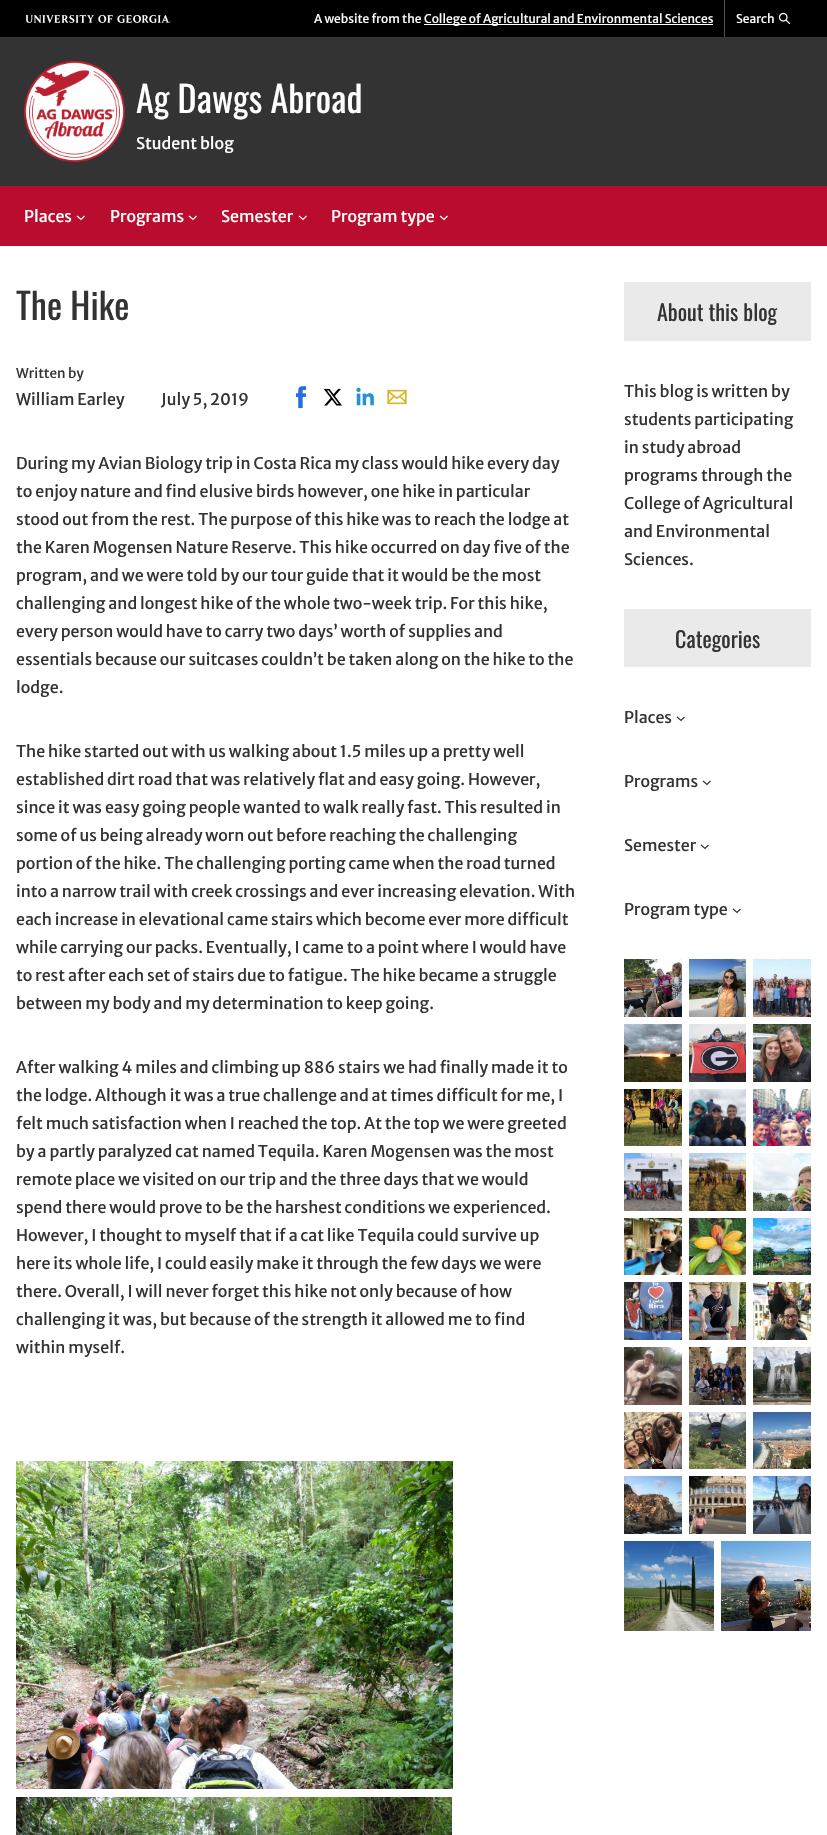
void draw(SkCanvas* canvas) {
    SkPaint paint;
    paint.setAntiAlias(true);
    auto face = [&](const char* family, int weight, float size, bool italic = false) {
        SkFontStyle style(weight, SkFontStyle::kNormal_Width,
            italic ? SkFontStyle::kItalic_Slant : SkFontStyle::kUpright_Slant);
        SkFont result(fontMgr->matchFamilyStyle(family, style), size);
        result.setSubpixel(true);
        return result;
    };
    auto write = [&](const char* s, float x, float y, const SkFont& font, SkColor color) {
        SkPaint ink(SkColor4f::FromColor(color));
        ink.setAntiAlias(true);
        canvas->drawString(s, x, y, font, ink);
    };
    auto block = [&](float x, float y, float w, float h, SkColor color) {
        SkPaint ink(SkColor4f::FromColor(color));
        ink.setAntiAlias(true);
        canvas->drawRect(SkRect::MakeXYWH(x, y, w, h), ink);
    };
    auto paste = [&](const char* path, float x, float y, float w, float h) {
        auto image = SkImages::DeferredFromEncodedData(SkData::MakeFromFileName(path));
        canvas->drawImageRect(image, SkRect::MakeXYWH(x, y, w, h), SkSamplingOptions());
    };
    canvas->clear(SK_ColorWHITE);
    block(0, 0, 827, 37, SK_ColorBLACK);
    paste("pic1.png", 25, 15, 146, 8);
    block(724, 0, 1, 37, SkColorSetRGB(77, 77, 77));
    auto kFont1 = face("Merriweather Sans", 400, 12);
    write("A website from the", 314, 23, kFont1, SK_ColorWHITE);
    block(424, 24, 289, 1, SK_ColorWHITE);
    write("College of Agricultural and Environmental Sciences", 424, 23, kFont1, SK_ColorWHITE);
    write("Search", 736, 23, kFont1, SK_ColorWHITE);
    paste("pic2.png", 778, 12, 13, 13);
    block(0, 37, 827, 149, SkColorSetRGB(51, 51, 51));
    paste("pic3.png", 24, 61, 101, 101);
    auto kFont2 = face("Oswald", 400, 36);
    write("Ag Dawgs Abroad", 136, 113, kFont2, SK_ColorWHITE);
    auto kFont3 = face("Merriweather Sans", 400, 16);
    write("Student blog", 136, 149, kFont3, SK_ColorWHITE);
    block(0, 186, 827, 60, SkColorSetRGB(186, 12, 47));
    write("Places", 24, 222, kFont3, SK_ColorWHITE);
    paint.setStyle(SkPaint::kStroke_Style);
    paint.setStrokeWidth(1.2f);
    paint.setColor(SK_ColorWHITE);
    canvas->drawPath(SkPathBuilder().moveTo(77, 216).lineTo(81, 219.5f).lineTo(84.5f, 216).detach(), paint);
    write("Programs", 110, 222, kFont3, SK_ColorWHITE);
    canvas->drawPath(SkPathBuilder().moveTo(189, 216).lineTo(193, 219.5f).lineTo(196.5f, 216).detach(), paint);
    write("Semester", 221, 222, kFont3, SK_ColorWHITE);
    canvas->drawPath(SkPathBuilder().moveTo(299, 216).lineTo(303, 219.5f).lineTo(306.5f, 216).detach(), paint);
    write("Program type", 331, 222, kFont3, SK_ColorWHITE);
    canvas->drawPath(SkPathBuilder().moveTo(440, 216).lineTo(444, 219.5f).lineTo(447.5f, 216).detach(), paint);
    write("The Hike", 16, 320, kFont2, SkColorSetRGB(51, 51, 51));
    auto kFont4 = face("Merriweather Sans", 400, 13.5f);
    write("Written by", 16, 378, kFont4, SkColorSetRGB(51, 51, 51));
    write("William Earley", 16, 405, kFont3, SkColorSetRGB(51, 51, 51));
    write("July 5, 2019", 161, 405, kFont3, SkColorSetRGB(51, 51, 51));
    paste("pic4.png", 295, 386, 12, 23);
    paste("pic5.png", 323, 388, 19, 18);
    paste("pic6.png", 356, 387, 18, 19);
    paste("pic7.png", 387, 389, 20, 16);
    write("During my Avian Biology trip in Costa Rica my class would hike every day", 16, 469, kFont3, SkColorSetRGB(51, 51, 51));
    write("to enjoy nature and find elusive birds however, one hike in particular", 16, 497, kFont3, SkColorSetRGB(51, 51, 51));
    write("stood out from the rest. The purpose of this hike was to reach the lodge at", 16, 525, kFont3, SkColorSetRGB(51, 51, 51));
    write("the Karen Mogensen Nature Reserve. This hike occurred on day five of the", 16, 553, kFont3, SkColorSetRGB(51, 51, 51));
    write("program, and we were told by our tour guide that it would be the most", 16, 581, kFont3, SkColorSetRGB(51, 51, 51));
    write("challenging and longest hike of the whole two-week trip. For this hike,", 16, 609, kFont3, SkColorSetRGB(51, 51, 51));
    write("every person would have to carry two days’ worth of supplies and", 16, 637, kFont3, SkColorSetRGB(51, 51, 51));
    write("essentials because our suitcases couldn’t be taken along on the hike to the", 16, 665, kFont3, SkColorSetRGB(51, 51, 51));
    write("lodge.", 16, 693, kFont3, SkColorSetRGB(51, 51, 51));
    write("The hike started out with us walking about 1.5 miles up a pretty well", 16, 757, kFont3, SkColorSetRGB(51, 51, 51));
    write("established dirt road that was relatively flat and easy going. However,", 16, 785, kFont3, SkColorSetRGB(51, 51, 51));
    write("since it was easy going people wanted to walk really fast. This resulted in", 16, 813, kFont3, SkColorSetRGB(51, 51, 51));
    write("some of us being already worn out before reaching the challenging", 16, 841, kFont3, SkColorSetRGB(51, 51, 51));
    write("portion of the hike. The challenging porting came when the road turned", 16, 869, kFont3, SkColorSetRGB(51, 51, 51));
    write("into a narrow trail with creek crossings and ever increasing elevation. With", 16, 897, kFont3, SkColorSetRGB(51, 51, 51));
    write("each increase in elevational came stairs which become ever more difficult", 16, 925, kFont3, SkColorSetRGB(51, 51, 51));
    write("while carrying our packs. Eventually, I came to a point where I would have", 16, 953, kFont3, SkColorSetRGB(51, 51, 51));
    write("to rest after each set of stairs due to fatigue. The hike became a struggle", 16, 981, kFont3, SkColorSetRGB(51, 51, 51));
    write("between my body and my determination to keep going.", 16, 1009, kFont3, SkColorSetRGB(51, 51, 51));
    write("After walking 4 miles and climbing up 886 stairs we had finally made it to", 16, 1073, kFont3, SkColorSetRGB(51, 51, 51));
    write("the lodge. Although it was a true challenge and at times difficult for me, I", 16, 1101, kFont3, SkColorSetRGB(51, 51, 51));
    write("felt much satisfaction when I reached the top. At the top we were greeted", 16, 1129, kFont3, SkColorSetRGB(51, 51, 51));
    write("by a partly paralyzed cat named Tequila. Karen Mogensen was the most", 16, 1157, kFont3, SkColorSetRGB(51, 51, 51));
    write("remote place we visited on our trip and the three days that we would", 16, 1185, kFont3, SkColorSetRGB(51, 51, 51));
    write("spend there would prove to be the harshest conditions we experienced.", 16, 1213, kFont3, SkColorSetRGB(51, 51, 51));
    write("However, I thought to myself that if a cat like Tequila could survive up", 16, 1241, kFont3, SkColorSetRGB(51, 51, 51));
    write("here its whole life, I could easily make it through the few days we were", 16, 1269, kFont3, SkColorSetRGB(51, 51, 51));
    write("there. Overall, I will never forget this hike not only because of how", 16, 1297, kFont3, SkColorSetRGB(51, 51, 51));
    write("challenging it was, but because of the strength it allowed me to find", 16, 1325, kFont3, SkColorSetRGB(51, 51, 51));
    write("within myself.", 16, 1353, kFont3, SkColorSetRGB(51, 51, 51));
    paste("pic8.png", 16, 1461, 437, 328);
    paste("pic9.png", 16, 1797, 436, 38);
    block(624, 282, 187, 59, SkColorSetRGB(234, 234, 234));
    auto kFont5 = face("Oswald", 400, 22);
    write("About this blog", 657, 321, kFont5, SkColorSetRGB(51, 51, 51));
    write("This blog is written by", 624, 397, kFont3, SkColorSetRGB(51, 51, 51));
    write("students participating", 624, 425, kFont3, SkColorSetRGB(51, 51, 51));
    write("in study abroad", 624, 453, kFont3, SkColorSetRGB(51, 51, 51));
    write("programs through the", 624, 481, kFont3, SkColorSetRGB(51, 51, 51));
    write("College of Agricultural", 624, 509, kFont3, SkColorSetRGB(51, 51, 51));
    write("and Environmental", 624, 537, kFont3, SkColorSetRGB(51, 51, 51));
    write("Sciences.", 624, 565, kFont3, SkColorSetRGB(51, 51, 51));
    block(624, 609, 187, 58, SkColorSetRGB(234, 234, 234));
    write("Categories", 675, 648, kFont5, SkColorSetRGB(51, 51, 51));
    write("Places", 624, 723, kFont3, SkColorSetRGB(51, 51, 51));
    paint.setColor(SkColorSetRGB(51, 51, 51));
    canvas->drawPath(SkPathBuilder().moveTo(677, 717).lineTo(681, 720.5f).lineTo(684.5f, 717).detach(), paint);
    write("Programs", 624, 787, kFont3, SkColorSetRGB(51, 51, 51));
    canvas->drawPath(SkPathBuilder().moveTo(703, 781).lineTo(707, 784.5f).lineTo(710.5f, 781).detach(), paint);
    write("Semester", 624, 851, kFont3, SkColorSetRGB(51, 51, 51));
    canvas->drawPath(SkPathBuilder().moveTo(701, 845).lineTo(705, 848.5f).lineTo(708.5f, 845).detach(), paint);
    write("Program type", 624, 915, kFont3, SkColorSetRGB(51, 51, 51));
    canvas->drawPath(SkPathBuilder().moveTo(733, 909).lineTo(737, 912.5f).lineTo(740.5f, 909).detach(), paint);
    paste("pic10.png", 624, 959, 58, 58);
    paste("pic11.png", 689, 959, 57, 58);
    paste("pic12.png", 753, 959, 58, 58);
    paste("pic13.png", 624, 1024, 58, 58);
    paste("pic14.png", 689, 1024, 57, 58);
    paste("pic15.png", 753, 1024, 58, 58);
    paste("pic16.png", 624, 1089, 58, 57);
    paste("pic17.png", 689, 1089, 57, 57);
    paste("pic18.png", 753, 1089, 58, 57);
    paste("pic19.png", 624, 1153, 58, 58);
    paste("pic20.png", 689, 1153, 57, 58);
    paste("pic21.png", 753, 1153, 58, 58);
    paste("pic22.png", 624, 1218, 58, 57);
    paste("pic23.png", 689, 1218, 57, 57);
    paste("pic24.png", 753, 1218, 58, 57);
    paste("pic25.png", 624, 1282, 58, 58);
    paste("pic26.png", 689, 1282, 57, 58);
    paste("pic27.png", 753, 1282, 58, 58);
    paste("pic28.png", 624, 1347, 58, 58);
    paste("pic29.png", 689, 1347, 57, 58);
    paste("pic30.png", 753, 1347, 58, 58);
    paste("pic31.png", 624, 1412, 58, 57);
    paste("pic32.png", 689, 1412, 57, 57);
    paste("pic33.png", 753, 1412, 58, 57);
    paste("pic34.png", 624, 1476, 58, 58);
    paste("pic35.png", 689, 1476, 57, 58);
    paste("pic36.png", 753, 1476, 58, 58);
    paste("pic37.png", 624, 1541, 90, 90);
    paste("pic38.png", 721, 1541, 90, 90);
}
